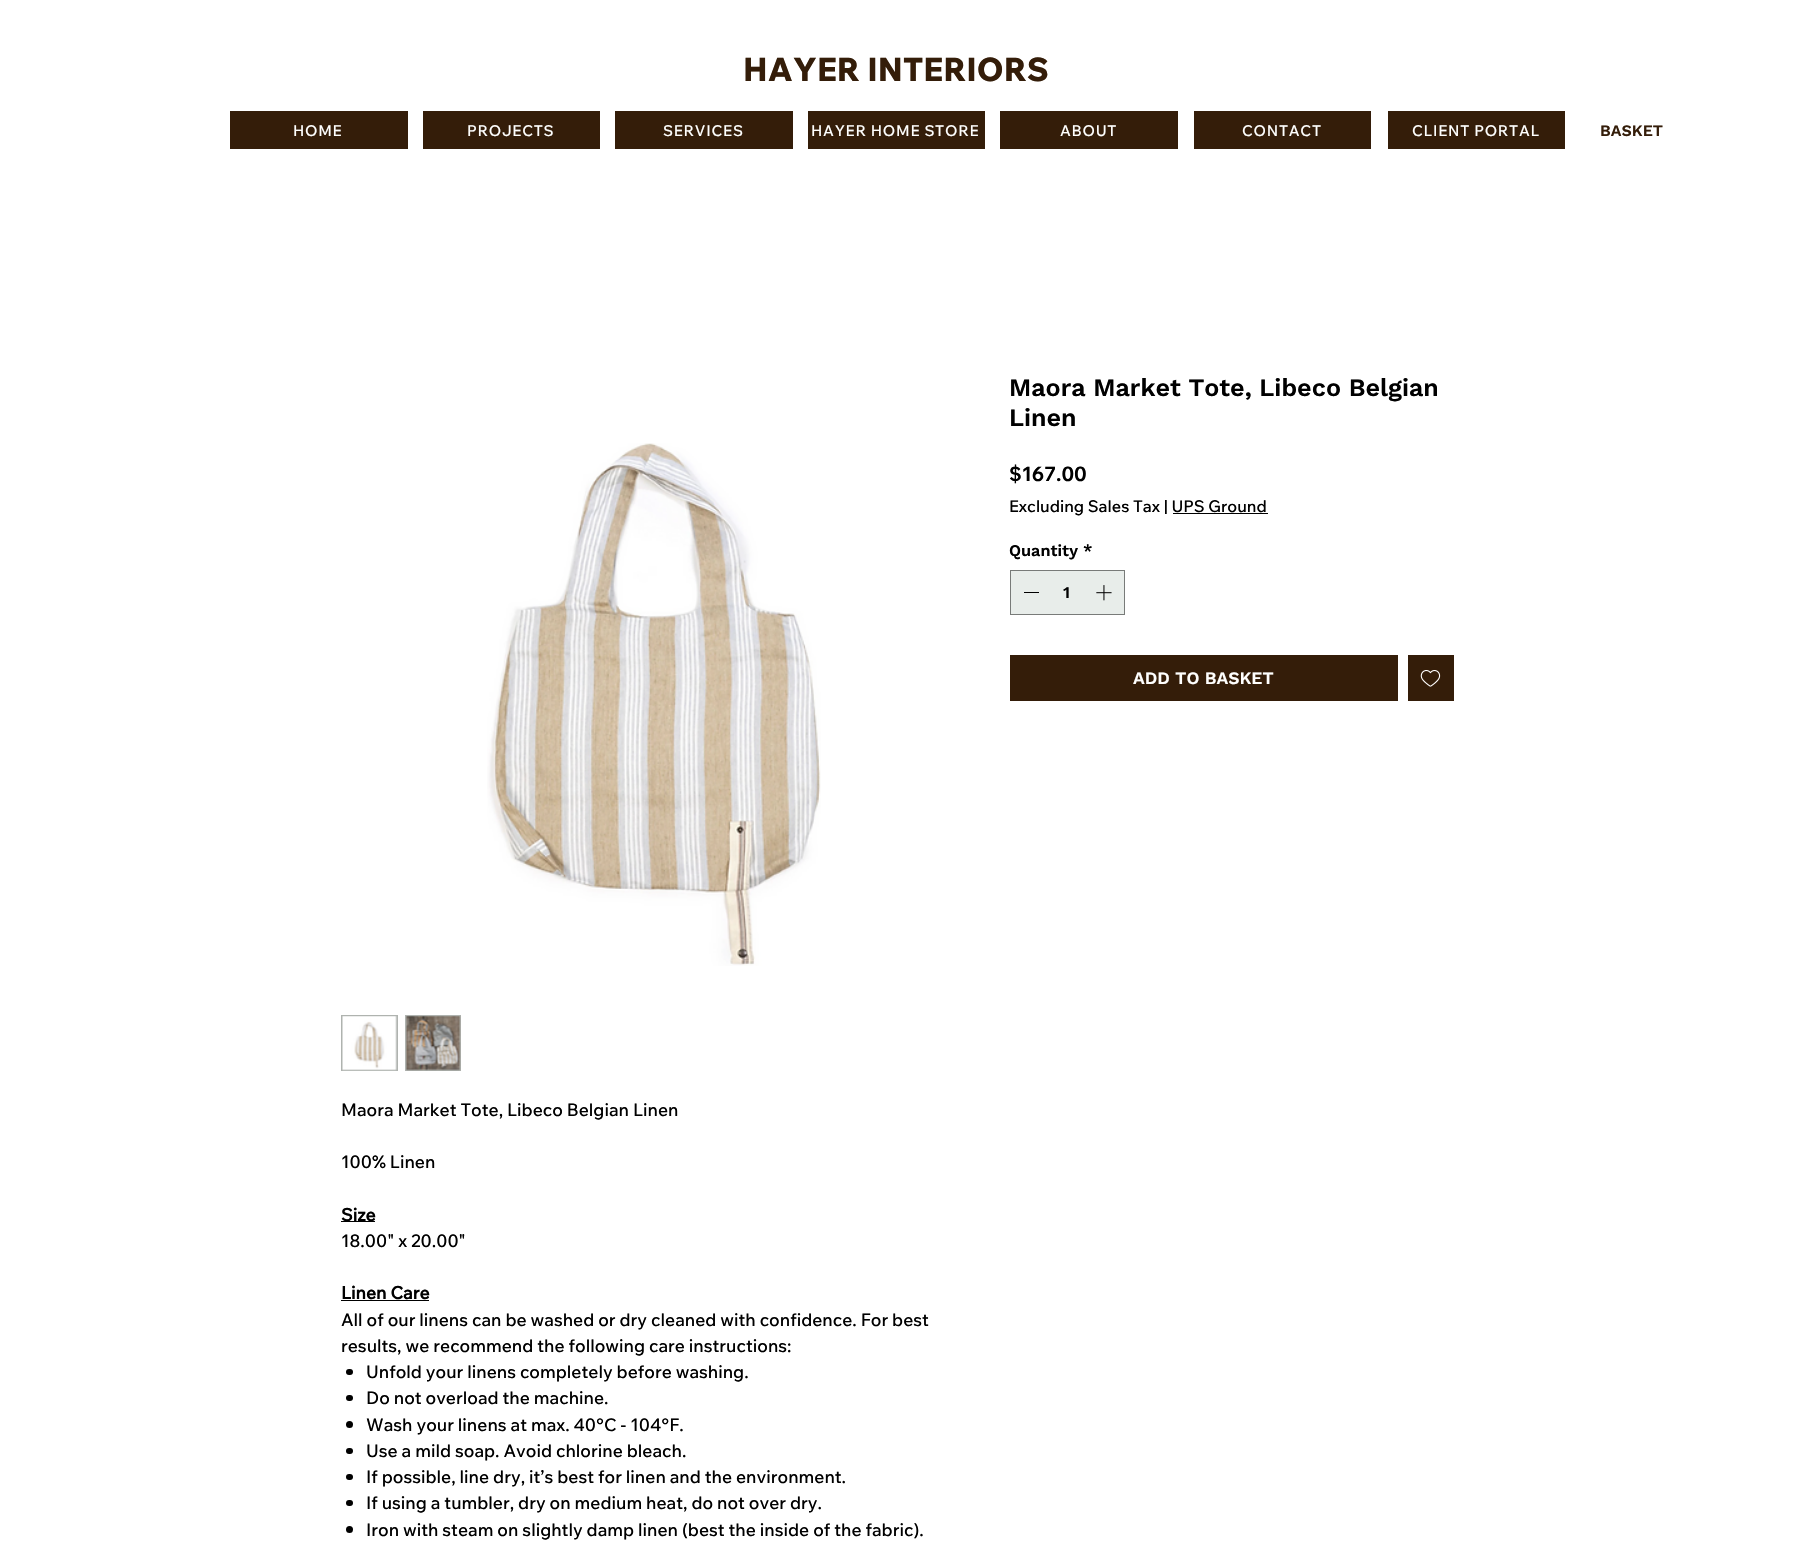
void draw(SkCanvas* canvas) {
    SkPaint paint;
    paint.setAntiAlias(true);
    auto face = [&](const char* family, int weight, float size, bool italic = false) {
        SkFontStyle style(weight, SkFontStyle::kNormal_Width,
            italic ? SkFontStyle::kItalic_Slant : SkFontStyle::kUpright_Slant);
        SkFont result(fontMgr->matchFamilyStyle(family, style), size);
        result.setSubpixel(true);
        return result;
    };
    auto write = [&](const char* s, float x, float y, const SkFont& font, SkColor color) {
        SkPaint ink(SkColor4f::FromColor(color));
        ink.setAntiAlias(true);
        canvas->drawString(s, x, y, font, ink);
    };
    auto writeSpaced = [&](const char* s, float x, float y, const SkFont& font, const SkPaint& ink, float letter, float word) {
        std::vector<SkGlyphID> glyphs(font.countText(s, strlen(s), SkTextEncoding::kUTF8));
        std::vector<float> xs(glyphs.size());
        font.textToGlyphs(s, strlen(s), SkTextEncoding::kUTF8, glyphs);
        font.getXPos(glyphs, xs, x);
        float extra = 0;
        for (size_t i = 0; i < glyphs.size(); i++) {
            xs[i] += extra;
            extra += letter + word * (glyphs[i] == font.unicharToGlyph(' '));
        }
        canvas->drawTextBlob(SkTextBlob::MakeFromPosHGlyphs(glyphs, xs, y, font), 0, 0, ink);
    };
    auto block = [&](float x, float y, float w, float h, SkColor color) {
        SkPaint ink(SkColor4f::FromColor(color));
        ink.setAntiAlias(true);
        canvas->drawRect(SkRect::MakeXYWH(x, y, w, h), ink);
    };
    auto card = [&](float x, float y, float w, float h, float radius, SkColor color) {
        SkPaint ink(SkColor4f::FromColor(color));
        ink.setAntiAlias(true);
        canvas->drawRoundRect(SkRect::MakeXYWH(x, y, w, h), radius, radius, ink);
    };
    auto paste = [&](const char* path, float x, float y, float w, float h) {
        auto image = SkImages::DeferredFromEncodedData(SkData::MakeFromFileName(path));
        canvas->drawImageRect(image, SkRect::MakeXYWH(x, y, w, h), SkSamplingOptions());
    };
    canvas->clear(SK_ColorWHITE);
    auto kFont1 = face("Wix Madefor Text", 800, 32.5f);
    write("HAYER INTERIORS", 743, 81, kFont1, SkColorSetRGB(52, 29, 9));
    block(230, 111, 178, 38, SkColorSetRGB(52, 29, 9));
    auto kFont2 = face("Wix Madefor Text", 500, 15);
    paint.setColor(SkColorSetRGB(255, 255, 254));
    writeSpaced("HOME", 293, 136, kFont2, paint, 0.75f, 0);
    block(423, 111, 177, 38, SkColorSetRGB(52, 29, 9));
    writeSpaced("PROJECTS", 467, 136, kFont2, paint, 0.75f, 0);
    block(615, 111, 178, 38, SkColorSetRGB(52, 29, 9));
    writeSpaced("SERVICES", 663, 136, kFont2, paint, 0.75f, 0);
    block(808, 111, 177, 38, SkColorSetRGB(52, 29, 9));
    writeSpaced("HAYER HOME STORE", 811, 136, kFont2, paint, 0.75f, 0);
    block(1000, 111, 178, 38, SkColorSetRGB(52, 29, 9));
    writeSpaced("ABOUT", 1060, 136, kFont2, paint, 0.75f, 0);
    block(1194, 111, 177, 38, SkColorSetRGB(52, 29, 9));
    writeSpaced("CONTACT", 1242, 136, kFont2, paint, 0.75f, 0);
    block(1388, 111, 177, 38, SkColorSetRGB(52, 29, 9));
    writeSpaced("CLIENT PORTAL", 1412, 136, kFont2, paint, 0.75f, 0);
    auto kFont3 = face("Work Sans", 600, 16);
    write("BASKET", 1600, 136, kFont3, SkColorSetRGB(52, 29, 9));
    auto kFont4 = face("Work Sans", 600, 25);
    write("Maora Market Tote, Libeco Belgian", 1009, 396, kFont4, SK_ColorBLACK);
    write("Linen", 1009, 426, kFont4, SK_ColorBLACK);
    auto kFont5 = face("Wix Madefor Text", 700, 20);
    write("$167.00", 1009, 481, kFont5, SK_ColorBLACK);
    auto kFont6 = face("Wix Madefor Text", 500, 16.25f);
    write("Excluding Sales Tax | UPS Ground", 1009, 512, kFont6, SK_ColorBLACK);
    block(1173, 513, 95, 1, SK_ColorBLACK);
    auto kFont7 = face("Work Sans", 600, 16.25f);
    write("Quantity *", 1009, 556, kFont7, SK_ColorBLACK);
    paint.setColor(SkColorSetRGB(232, 237, 234));
    canvas->drawRect(SkRect::MakeXYWH(1010.5f, 570.5f, 114, 44), paint);
    paint.setStyle(SkPaint::kStroke_Style);
    paint.setStrokeWidth(1);
    paint.setColor(SkColorSetRGB(120, 123, 121));
    canvas->drawRect(SkRect::MakeXYWH(1010.5f, 570.5f, 114, 44), paint);
    block(1024, 592, 15, 1, SK_ColorBLACK);
    write("1", 1063, 598, kFont7, SK_ColorBLACK);
    paste("pic1.png", 1096, 585, 16, 16);
    block(1010, 655, 388, 46, SkColorSetRGB(52, 29, 9));
    auto kFont8 = face("Work Sans", 600, 17.5f);
    write("ADD TO BASKET", 1133, 684, kFont8, SkColorSetRGB(255, 255, 254));
    block(1408, 655, 46, 46, SkColorSetRGB(52, 29, 9));
    paste("pic2.png", 1420, 670, 21, 17);
    paste("pic3.png", 487, 443, 334, 523);
    block(341, 1015, 57, 56, SkColorSetRGB(175, 179, 175));
    paste("pic4.png", 342, 1016, 55, 55);
    block(405, 1015, 56, 56, SkColorSetRGB(175, 179, 175));
    paste("pic5.png", 406, 1016, 55, 55);
    auto kFont9 = face("Wix Madefor Text", 500, 17.5f);
    write("Maora Market Tote, Libeco Belgian Linen", 341, 1116, kFont9, SK_ColorBLACK);
    write("100% Linen", 341, 1168, kFont9, SK_ColorBLACK);
    block(341, 1221, 34, 1, SK_ColorBLACK);
    auto kFont10 = face("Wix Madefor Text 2", 700, 17.5f);
    write("Size", 341, 1221, kFont10, SK_ColorBLACK);
    write("18.00\" x 20.00\"", 341, 1247, kFont9, SK_ColorBLACK);
    write("Linen Care", 341, 1299, kFont10, SK_ColorBLACK);
    block(341, 1300, 88, 1, SK_ColorBLACK);
    write("All of our linens can be washed or dry cleaned with confidence. For best", 341, 1326, kFont9, SK_ColorBLACK);
    write("results, we recommend the following care instructions:", 341, 1352, kFont9, SK_ColorBLACK);
    card(346, 1369, 7, 6, 3, SK_ColorBLACK);
    write("Unfold your linens completely before washing.", 366, 1378, kFont9, SK_ColorBLACK);
    card(346, 1395, 7, 6, 3, SK_ColorBLACK);
    write("Do not overload the machine.", 366, 1404, kFont9, SK_ColorBLACK);
    paint.setStyle(SkPaint::kFill_Style);
    paint.setColor(SK_ColorBLACK);
    canvas->drawCircle(349.5f, 1424.5f, 3.5f, paint);
    write("Wash your linens at max. 40°C - 104°F.", 366, 1431, kFont9, SK_ColorBLACK);
    card(346, 1448, 7, 6, 3, SK_ColorBLACK);
    write("Use a mild soap. Avoid chlorine bleach.", 366, 1457, kFont9, SK_ColorBLACK);
    card(346, 1474, 7, 6, 3, SK_ColorBLACK);
    write("If possible, line dry, it’s best for linen and the environment.", 366, 1483, kFont9, SK_ColorBLACK);
    card(346, 1500, 7, 6, 3, SK_ColorBLACK);
    write("If using a tumbler, dry on medium heat, do not over dry.", 366, 1509, kFont9, SK_ColorBLACK);
    canvas->drawCircle(349.5f, 1529.5f, 3.5f, paint);
    write("Iron with steam on slightly damp linen (best the inside of the fabric).", 366, 1536, kFont9, SK_ColorBLACK);
}
